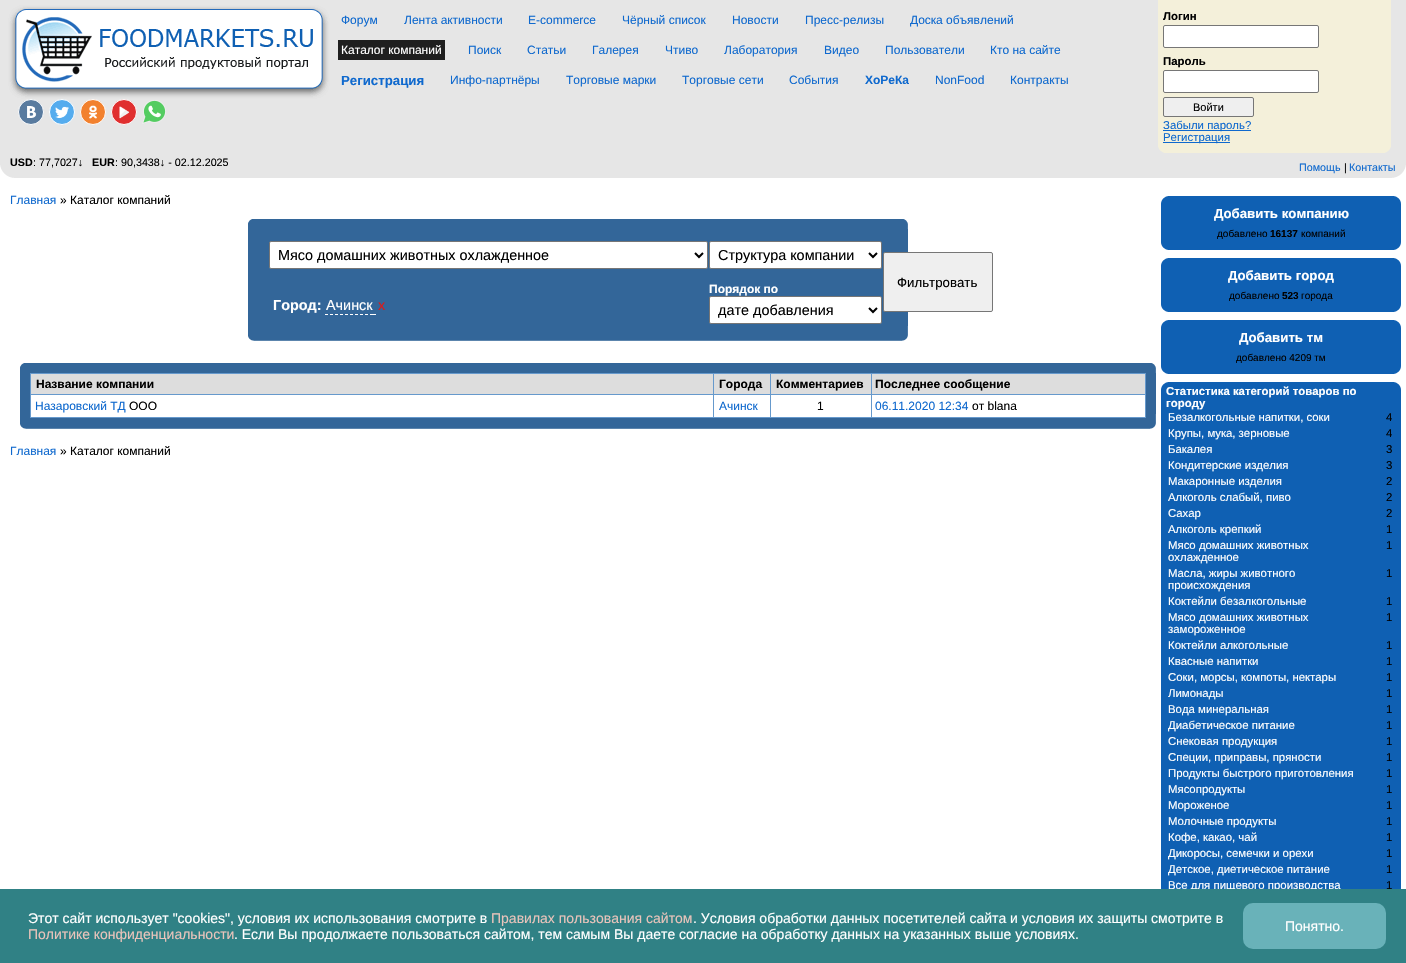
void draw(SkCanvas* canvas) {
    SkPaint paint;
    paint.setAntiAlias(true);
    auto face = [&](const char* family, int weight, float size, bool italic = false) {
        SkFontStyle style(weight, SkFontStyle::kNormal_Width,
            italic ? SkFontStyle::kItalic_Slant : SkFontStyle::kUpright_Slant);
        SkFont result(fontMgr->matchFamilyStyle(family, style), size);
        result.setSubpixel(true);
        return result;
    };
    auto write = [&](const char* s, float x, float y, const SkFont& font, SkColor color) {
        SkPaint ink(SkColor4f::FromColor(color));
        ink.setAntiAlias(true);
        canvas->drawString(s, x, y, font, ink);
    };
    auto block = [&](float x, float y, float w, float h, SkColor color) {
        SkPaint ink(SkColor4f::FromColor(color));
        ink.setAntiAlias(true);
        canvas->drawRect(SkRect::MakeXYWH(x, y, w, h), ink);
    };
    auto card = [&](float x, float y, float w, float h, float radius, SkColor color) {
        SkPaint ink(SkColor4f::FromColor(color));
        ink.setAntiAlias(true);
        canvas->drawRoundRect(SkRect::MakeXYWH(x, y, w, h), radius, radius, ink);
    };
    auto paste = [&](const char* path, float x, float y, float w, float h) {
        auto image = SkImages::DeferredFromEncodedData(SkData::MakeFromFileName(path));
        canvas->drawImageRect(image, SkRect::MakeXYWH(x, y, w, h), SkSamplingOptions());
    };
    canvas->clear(SK_ColorWHITE);
    block(0, 0, 1406, 178, SkColorSetRGB(230, 230, 230));
    paste("pic1.png", 8, 5, 322, 94);
    paint.setColor(SkColorSetRGB(89, 123, 159));
    canvas->drawCircle(31, 112, 12.5f, paint);
    paint.setStyle(SkPaint::kStroke_Style);
    paint.setStrokeWidth(1);
    paint.setColor(SK_ColorWHITE);
    canvas->drawCircle(31, 112, 12.5f, paint);
    paste("pic2.png", 27, 106, 10, 12);
    paint.setStyle(SkPaint::kFill_Style);
    paint.setColor(SkColorSetRGB(85, 172, 238));
    canvas->drawCircle(62, 112, 12.5f, paint);
    paint.setStyle(SkPaint::kStroke_Style);
    paint.setColor(SK_ColorWHITE);
    canvas->drawCircle(62, 112, 12.5f, paint);
    paste("pic3.png", 55, 106, 14, 12);
    paint.setStyle(SkPaint::kFill_Style);
    paint.setColor(SkColorSetRGB(242, 129, 46));
    canvas->drawCircle(93, 112, 12.5f, paint);
    paint.setStyle(SkPaint::kStroke_Style);
    paint.setColor(SK_ColorWHITE);
    canvas->drawCircle(93, 112, 12.5f, paint);
    paste("pic4.png", 89, 105, 8, 14);
    paint.setStyle(SkPaint::kFill_Style);
    paint.setColor(SkColorSetRGB(224, 47, 47));
    canvas->drawCircle(124, 112, 12.5f, paint);
    paint.setStyle(SkPaint::kStroke_Style);
    paint.setColor(SK_ColorWHITE);
    canvas->drawCircle(124, 112, 12.5f, paint);
    paste("pic5.png", 119, 106, 11, 13);
    paste("pic6.png", 142, 100, 24, 24);
    auto kFont1 = face("Liberation Sans", 400, 12);
    write("Форум", 341, 24, kFont1, SkColorSetRGB(15, 105, 206));
    write("Лента активности", 404, 24, kFont1, SkColorSetRGB(15, 105, 206));
    write("E-commerce", 528, 24, kFont1, SkColorSetRGB(15, 105, 206));
    write("Чёрный список", 622, 24, kFont1, SkColorSetRGB(15, 105, 206));
    write("Новости", 732, 24, kFont1, SkColorSetRGB(15, 105, 206));
    write("Пресс-релизы", 805, 24, kFont1, SkColorSetRGB(15, 105, 206));
    write("Доска объявлений", 910, 24, kFont1, SkColorSetRGB(15, 105, 206));
    block(338, 40, 107, 20, SkColorSetRGB(31, 31, 31));
    write("Каталог компаний", 341, 54, kFont1, SK_ColorWHITE);
    write("Поиск", 468, 54, kFont1, SkColorSetRGB(15, 105, 206));
    write("Статьи", 527, 54, kFont1, SkColorSetRGB(15, 105, 206));
    write("Галерея", 592, 54, kFont1, SkColorSetRGB(15, 105, 206));
    write("Чтиво", 665, 54, kFont1, SkColorSetRGB(15, 105, 206));
    write("Лаборатория", 724, 54, kFont1, SkColorSetRGB(15, 105, 206));
    write("Видео", 824, 54, kFont1, SkColorSetRGB(15, 105, 206));
    write("Пользователи", 885, 54, kFont1, SkColorSetRGB(15, 105, 206));
    write("Кто на сайте", 990, 54, kFont1, SkColorSetRGB(15, 105, 206));
    auto kFont2 = face("Liberation Sans", 700, 13.25f);
    write("Регистрация", 341, 85, kFont2, SkColorSetRGB(15, 105, 206));
    write("Инфо-партнёры", 450, 84, kFont1, SkColorSetRGB(15, 105, 206));
    write("Торговые марки", 566, 84, kFont1, SkColorSetRGB(15, 105, 206));
    write("Торговые сети", 682, 84, kFont1, SkColorSetRGB(15, 105, 206));
    write("События", 789, 84, kFont1, SkColorSetRGB(15, 105, 206));
    auto kFont3 = face("Liberation Sans", 700, 12);
    write("ХоРеКа", 865, 84, kFont3, SkColorSetRGB(15, 105, 206));
    write("NonFood", 935, 84, kFont1, SkColorSetRGB(15, 105, 206));
    write("Контракты", 1010, 84, kFont1, SkColorSetRGB(15, 105, 206));
    block(1158, 0, 233, 153, SkColorSetRGB(244, 240, 218));
    auto kFont4 = face("Liberation Sans", 700, 11.4f);
    write("Логин", 1163, 20, kFont4, SK_ColorBLACK);
    paint.setStyle(SkPaint::kFill_Style);
    canvas->drawRoundRect(SkRect::MakeXYWH(1163.5f, 25.5f, 155, 22), 1.5f, 1.5f, paint);
    paint.setStyle(SkPaint::kStroke_Style);
    paint.setColor(SkColorSetRGB(118, 118, 118));
    canvas->drawRoundRect(SkRect::MakeXYWH(1163.5f, 25.5f, 155, 22), 1.5f, 1.5f, paint);
    write("Пароль", 1163, 65, kFont4, SK_ColorBLACK);
    paint.setStyle(SkPaint::kFill_Style);
    paint.setColor(SK_ColorWHITE);
    canvas->drawRoundRect(SkRect::MakeXYWH(1163.5f, 70.5f, 155, 22), 1.5f, 1.5f, paint);
    paint.setStyle(SkPaint::kStroke_Style);
    paint.setColor(SkColorSetRGB(118, 118, 118));
    canvas->drawRoundRect(SkRect::MakeXYWH(1163.5f, 70.5f, 155, 22), 1.5f, 1.5f, paint);
    paint.setStyle(SkPaint::kFill_Style);
    paint.setColor(SkColorSetRGB(239, 239, 239));
    canvas->drawRoundRect(SkRect::MakeXYWH(1163.5f, 97.5f, 90, 19), 1.5f, 1.5f, paint);
    paint.setStyle(SkPaint::kStroke_Style);
    paint.setColor(SkColorSetRGB(118, 118, 118));
    canvas->drawRoundRect(SkRect::MakeXYWH(1163.5f, 97.5f, 90, 19), 1.5f, 1.5f, paint);
    auto kFont5 = face("Liberation Sans", 400, 11);
    write("Войти", 1193, 111, kFont5, SK_ColorBLACK);
    block(1163, 130, 88, 1, SkColorSetRGB(15, 105, 206));
    auto kFont6 = face("Liberation Sans", 400, 11.4f);
    write("Забыли пароль?", 1163, 129, kFont6, SkColorSetRGB(15, 105, 206));
    block(1163, 142, 67, 1, SkColorSetRGB(15, 105, 206));
    write("Регистрация", 1163, 141, kFont6, SkColorSetRGB(15, 105, 206));
    paste("pic7.png", 1158, 147, 6, 6);
    paste("pic8.png", 1385, 147, 6, 6);
    paste("pic9.png", 0, 165, 14, 13);
    auto kFont7 = face("Liberation Sans", 700, 10.75f);
    write("USD", 10, 166, kFont7, SK_ColorBLACK);
    auto kFont8 = face("Liberation Sans", 400, 10.75f);
    write(": 77,7027↓", 33, 166, kFont8, SK_ColorBLACK);
    write("EUR", 92, 166, kFont7, SK_ColorBLACK);
    write(": 90,3438↓ - 02.12.2025", 115, 166, kFont8, SK_ColorBLACK);
    paste("pic10.png", 1392, 165, 14, 13);
    write("Помощь", 1299, 171, kFont8, SkColorSetRGB(15, 105, 206));
    write("|", 1344, 171, kFont8, SK_ColorBLACK);
    write("Контакты", 1349, 171, kFont8, SkColorSetRGB(15, 105, 206));
    write("Главная", 10, 204, kFont1, SkColorSetRGB(15, 105, 206));
    write("» Каталог компаний", 60, 204, kFont1, SK_ColorBLACK);
    block(248, 219, 660, 117, SkColorSetRGB(51, 102, 153));
    paste("pic11.png", 248, 219, 4, 5);
    paste("pic12.png", 903, 219, 5, 10);
    paint.setStyle(SkPaint::kFill_Style);
    paint.setColor(SK_ColorWHITE);
    canvas->drawRoundRect(SkRect::MakeXYWH(269.5f, 241.5f, 438, 27), 1.5f, 1.5f, paint);
    paint.setStyle(SkPaint::kStroke_Style);
    paint.setColor(SkColorSetRGB(118, 118, 118));
    canvas->drawRoundRect(SkRect::MakeXYWH(269.5f, 241.5f, 438, 27), 1.5f, 1.5f, paint);
    paint.setStrokeWidth(2);
    paint.setColor(SK_ColorBLACK);
    canvas->drawPath(SkPathBuilder().moveTo(695, 253).lineTo(699, 257).lineTo(703, 253).detach(), paint);
    auto kFont9 = face("Liberation Sans", 400, 14.4f);
    write("Мясо домашних животных охлажденное", 278, 260, kFont9, SK_ColorBLACK);
    paint.setStyle(SkPaint::kFill_Style);
    paint.setColor(SK_ColorWHITE);
    canvas->drawRoundRect(SkRect::MakeXYWH(709.5f, 241.5f, 172, 27), 1.5f, 1.5f, paint);
    paint.setStyle(SkPaint::kStroke_Style);
    paint.setStrokeWidth(1);
    paint.setColor(SkColorSetRGB(118, 118, 118));
    canvas->drawRoundRect(SkRect::MakeXYWH(709.5f, 241.5f, 172, 27), 1.5f, 1.5f, paint);
    paint.setStrokeWidth(2);
    paint.setColor(SK_ColorBLACK);
    canvas->drawPath(SkPathBuilder().moveTo(869, 253).lineTo(873, 257).lineTo(877, 253).detach(), paint);
    write("Cтруктура компании", 718, 260, kFont9, SK_ColorBLACK);
    paint.setStyle(SkPaint::kFill_Style);
    paint.setColor(SkColorSetRGB(239, 239, 239));
    canvas->drawRoundRect(SkRect::MakeXYWH(883.5f, 252.5f, 109, 59), 1.5f, 1.5f, paint);
    paint.setStyle(SkPaint::kStroke_Style);
    paint.setStrokeWidth(1);
    paint.setColor(SkColorSetRGB(118, 118, 118));
    canvas->drawRoundRect(SkRect::MakeXYWH(883.5f, 252.5f, 109, 59), 1.5f, 1.5f, paint);
    auto kFont10 = face("Liberation Sans", 400, 13.25f);
    write("Фильтровать", 897, 287, kFont10, SK_ColorBLACK);
    auto kFont11 = face("Liberation Sans", 700, 14.4f);
    write("Город:", 273, 310, kFont11, SK_ColorWHITE);
    write("Ачинск", 326, 310, kFont9, SK_ColorWHITE);
    paint.setColor(SK_ColorWHITE);
    paint.setPathEffect(SkDashPathEffect::Make({{3, 2}}, 0));
    canvas->drawPath(SkPathBuilder().moveTo(325, 314.5f).lineTo(373, 314.5f).detach(), paint);
    paint.setPathEffect(nullptr);
    canvas->drawPath(SkPathBuilder().moveTo(373, 314.5f).lineTo(376, 314.5f).detach(), paint);
    write("x", 378, 310, kFont9, SkColorSetRGB(219, 26, 26));
    write("Порядок по", 709, 293, kFont3, SK_ColorWHITE);
    paint.setStyle(SkPaint::kFill_Style);
    canvas->drawRoundRect(SkRect::MakeXYWH(709.5f, 296.5f, 172, 27), 1.5f, 1.5f, paint);
    paint.setStyle(SkPaint::kStroke_Style);
    paint.setColor(SkColorSetRGB(118, 118, 118));
    canvas->drawRoundRect(SkRect::MakeXYWH(709.5f, 296.5f, 172, 27), 1.5f, 1.5f, paint);
    paint.setStrokeWidth(2);
    paint.setColor(SK_ColorBLACK);
    canvas->drawPath(SkPathBuilder().moveTo(869, 308).lineTo(873, 312).lineTo(877, 308).detach(), paint);
    write("дате добавления", 718, 315, kFont9, SK_ColorBLACK);
    paste("pic13.png", 248, 336, 654, 5);
    paste("pic14.png", 902, 326, 6, 15);
    block(20, 363, 1136, 61, SkColorSetRGB(51, 102, 153));
    paste("pic11.png", 20, 363, 4, 5);
    paste("pic12.png", 1151, 363, 5, 10);
    block(31, 395, 1114, 22, SK_ColorWHITE);
    paint.setStrokeWidth(1);
    paint.setColor(SkColorSetRGB(102, 153, 204));
    canvas->drawRect(SkRect::MakeXYWH(30.5f, 373.5f, 1115, 44), paint);
    block(31, 374, 1114, 20, SkColorSetRGB(221, 221, 221));
    block(713, 374, 1, 20, SkColorSetRGB(102, 153, 204));
    write("Название компании", 36, 388, kFont3, SK_ColorBLACK);
    block(770, 374, 1, 20, SkColorSetRGB(102, 153, 204));
    write("Города", 719, 388, kFont3, SK_ColorBLACK);
    block(871, 374, 1, 20, SkColorSetRGB(102, 153, 204));
    write("Комментариев", 776, 388, kFont3, SK_ColorBLACK);
    write("Последнее сообщение", 875, 388, kFont3, SK_ColorBLACK);
    block(31, 394, 1114, 1, SkColorSetRGB(102, 153, 204));
    block(713, 394, 1, 23, SkColorSetRGB(102, 153, 204));
    write("Назаровский ТД", 35, 410, kFont1, SkColorSetRGB(15, 105, 206));
    write("ООО", 129, 410, kFont1, SK_ColorBLACK);
    block(770, 394, 1, 23, SkColorSetRGB(102, 153, 204));
    write("Ачинск", 719, 410, kFont1, SkColorSetRGB(15, 105, 206));
    block(871, 394, 1, 23, SkColorSetRGB(102, 153, 204));
    write("1", 817, 410, kFont1, SK_ColorBLACK);
    write("06.11.2020 12:34", 875, 410, kFont1, SkColorSetRGB(15, 105, 206));
    write("от blana", 972, 410, kFont1, SK_ColorBLACK);
    paste("pic15.png", 20, 424, 1130, 5);
    paste("pic14.png", 1150, 414, 6, 15);
    write("Главная", 10, 455, kFont1, SkColorSetRGB(15, 105, 206));
    write("» Каталог компаний", 60, 455, kFont1, SK_ColorBLACK);
    block(1161, 196, 240, 54, SkColorSetRGB(15, 96, 179));
    paste("pic16.png", 1161, 196, 7, 8);
    paste("pic17.png", 1394, 196, 7, 8);
    write("Добавить компанию", 1214, 218, kFont2, SK_ColorWHITE);
    auto kFont12 = face("Liberation Sans", 400, 10);
    write("добавлено", 1217, 237, kFont12, SK_ColorBLACK);
    auto kFont13 = face("Liberation Sans", 700, 10);
    write("16137", 1270, 237, kFont13, SK_ColorBLACK);
    write("компаний", 1301, 237, kFont12, SK_ColorBLACK);
    paste("pic18.png", 1161, 242, 7, 8);
    paste("pic19.png", 1394, 242, 7, 8);
    block(1161, 258, 240, 54, SkColorSetRGB(15, 96, 179));
    paste("pic16.png", 1161, 258, 7, 8);
    paste("pic17.png", 1394, 258, 7, 8);
    write("Добавить город", 1228, 280, kFont2, SK_ColorWHITE);
    write("добавлено", 1229, 299, kFont12, SK_ColorBLACK);
    write("523", 1282, 299, kFont13, SK_ColorBLACK);
    write("города", 1301, 299, kFont12, SK_ColorBLACK);
    paste("pic18.png", 1161, 304, 7, 8);
    paste("pic19.png", 1394, 304, 7, 8);
    block(1161, 320, 240, 54, SkColorSetRGB(15, 96, 179));
    paste("pic16.png", 1161, 320, 7, 8);
    paste("pic17.png", 1394, 320, 7, 8);
    write("Добавить тм", 1239, 342, kFont2, SK_ColorWHITE);
    write("добавлено 4209 тм", 1236, 361, kFont12, SK_ColorBLACK);
    paste("pic18.png", 1161, 366, 7, 8);
    paste("pic19.png", 1394, 366, 7, 8);
    block(1161, 382, 240, 507, SkColorSetRGB(15, 96, 179));
    paste("pic16.png", 1161, 382, 7, 8);
    write("Статистика категорий товаров по", 1166, 395, kFont4, SK_ColorWHITE);
    paste("pic17.png", 1394, 382, 7, 8);
    write("городу", 1166, 407, kFont4, SK_ColorWHITE);
    write("Безалкогольные напитки, соки", 1168, 421, kFont6, SK_ColorWHITE);
    write("4", 1386, 421, kFont6, SK_ColorBLACK);
    write("Крупы, мука, зерновые", 1168, 437, kFont6, SK_ColorWHITE);
    write("4", 1386, 437, kFont6, SK_ColorBLACK);
    write("Бакалея", 1168, 453, kFont6, SK_ColorWHITE);
    write("3", 1386, 453, kFont6, SK_ColorBLACK);
    write("Кондитерские изделия", 1168, 469, kFont6, SK_ColorWHITE);
    write("3", 1386, 469, kFont6, SK_ColorBLACK);
    write("Макаронные изделия", 1168, 485, kFont6, SK_ColorWHITE);
    write("2", 1386, 485, kFont6, SK_ColorBLACK);
    write("Алкоголь слабый, пиво", 1168, 501, kFont6, SK_ColorWHITE);
    write("2", 1386, 501, kFont6, SK_ColorBLACK);
    write("Сахар", 1168, 517, kFont6, SK_ColorWHITE);
    write("2", 1386, 517, kFont6, SK_ColorBLACK);
    write("Алкоголь крепкий", 1168, 533, kFont6, SK_ColorWHITE);
    write("1", 1386, 533, kFont6, SK_ColorBLACK);
    write("Мясо домашних животных", 1168, 549, kFont6, SK_ColorWHITE);
    write("охлажденное", 1168, 561, kFont6, SK_ColorWHITE);
    write("1", 1386, 549, kFont6, SK_ColorBLACK);
    write("Масла, жиры животного", 1168, 577, kFont6, SK_ColorWHITE);
    write("происхождения", 1168, 589, kFont6, SK_ColorWHITE);
    write("1", 1386, 577, kFont6, SK_ColorBLACK);
    write("Коктейли безалкогольные", 1168, 605, kFont6, SK_ColorWHITE);
    write("1", 1386, 605, kFont6, SK_ColorBLACK);
    write("Мясо домашних животных", 1168, 621, kFont6, SK_ColorWHITE);
    write("замороженное", 1168, 633, kFont6, SK_ColorWHITE);
    write("1", 1386, 621, kFont6, SK_ColorBLACK);
    write("Коктейли алкогольные", 1168, 649, kFont6, SK_ColorWHITE);
    write("1", 1386, 649, kFont6, SK_ColorBLACK);
    write("Квасные напитки", 1168, 665, kFont6, SK_ColorWHITE);
    write("1", 1386, 665, kFont6, SK_ColorBLACK);
    write("Соки, морсы, компоты, нектары", 1168, 681, kFont6, SK_ColorWHITE);
    write("1", 1386, 681, kFont6, SK_ColorBLACK);
    write("Лимонады", 1168, 697, kFont6, SK_ColorWHITE);
    write("1", 1386, 697, kFont6, SK_ColorBLACK);
    write("Вода минеральная", 1168, 713, kFont6, SK_ColorWHITE);
    write("1", 1386, 713, kFont6, SK_ColorBLACK);
    write("Диабетическое питание", 1168, 729, kFont6, SK_ColorWHITE);
    write("1", 1386, 729, kFont6, SK_ColorBLACK);
    write("Снековая продукция", 1168, 745, kFont6, SK_ColorWHITE);
    write("1", 1386, 745, kFont6, SK_ColorBLACK);
    write("Специи, приправы, пряности", 1168, 761, kFont6, SK_ColorWHITE);
    write("1", 1386, 761, kFont6, SK_ColorBLACK);
    write("Продукты быстрого приготовления", 1168, 777, kFont6, SK_ColorWHITE);
    write("1", 1386, 777, kFont6, SK_ColorBLACK);
    write("Мясопродукты", 1168, 793, kFont6, SK_ColorWHITE);
    write("1", 1386, 793, kFont6, SK_ColorBLACK);
    write("Мороженое", 1168, 809, kFont6, SK_ColorWHITE);
    write("1", 1386, 809, kFont6, SK_ColorBLACK);
    write("Молочные продукты", 1168, 825, kFont6, SK_ColorWHITE);
    write("1", 1386, 825, kFont6, SK_ColorBLACK);
    write("Кофе, какао, чай", 1168, 841, kFont6, SK_ColorWHITE);
    write("1", 1386, 841, kFont6, SK_ColorBLACK);
    write("Дикоросы, семечки и орехи", 1168, 857, kFont6, SK_ColorWHITE);
    write("1", 1386, 857, kFont6, SK_ColorBLACK);
    write("Детское, диетическое питание", 1168, 873, kFont6, SK_ColorWHITE);
    write("1", 1386, 873, kFont6, SK_ColorBLACK);
    write("Все для пищевого производства", 1168, 889, kFont6, SK_ColorWHITE);
    write("1", 1386, 889, kFont6, SK_ColorBLACK);
    block(0, 889, 1406, 74, SkColorSetRGB(48, 129, 133));
    auto kFont14 = face("Liberation Sans", 400, 14);
    write("Этот сайт использует \"cookies\", условия их использования смотрите в", 28, 923, kFont14, SK_ColorWHITE);
    write("Правилах пользования сайтом", 491, 923, kFont14, SkColorSetRGB(234, 196, 187));
    write(". Условия обработки данных посетителей сайта и условия их защиты смотрите в", 693, 923, kFont14, SK_ColorWHITE);
    card(1243, 903, 143, 46, 10, SkColorSetRGB(105, 178, 185));
    write("Понятно.", 1285, 931, kFont14, SK_ColorWHITE);
    write("Политике конфиденциальности", 28, 939, kFont14, SkColorSetRGB(234, 196, 187));
    write(". Если Вы продолжаете пользоваться сайтом, тем самым Вы даете согласие на обработку данных на указанных выше условиях.", 234, 939, kFont14, SK_ColorWHITE);
}
